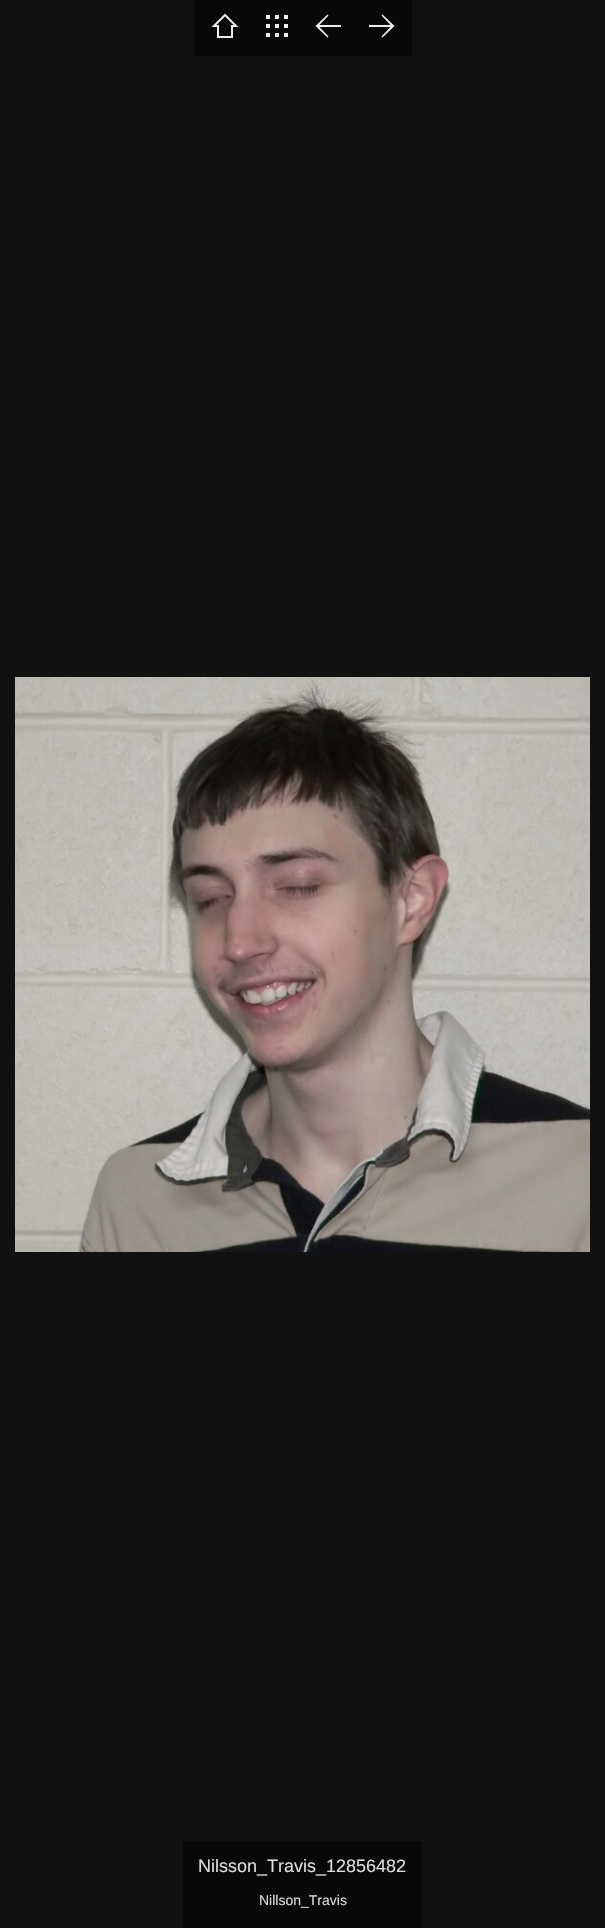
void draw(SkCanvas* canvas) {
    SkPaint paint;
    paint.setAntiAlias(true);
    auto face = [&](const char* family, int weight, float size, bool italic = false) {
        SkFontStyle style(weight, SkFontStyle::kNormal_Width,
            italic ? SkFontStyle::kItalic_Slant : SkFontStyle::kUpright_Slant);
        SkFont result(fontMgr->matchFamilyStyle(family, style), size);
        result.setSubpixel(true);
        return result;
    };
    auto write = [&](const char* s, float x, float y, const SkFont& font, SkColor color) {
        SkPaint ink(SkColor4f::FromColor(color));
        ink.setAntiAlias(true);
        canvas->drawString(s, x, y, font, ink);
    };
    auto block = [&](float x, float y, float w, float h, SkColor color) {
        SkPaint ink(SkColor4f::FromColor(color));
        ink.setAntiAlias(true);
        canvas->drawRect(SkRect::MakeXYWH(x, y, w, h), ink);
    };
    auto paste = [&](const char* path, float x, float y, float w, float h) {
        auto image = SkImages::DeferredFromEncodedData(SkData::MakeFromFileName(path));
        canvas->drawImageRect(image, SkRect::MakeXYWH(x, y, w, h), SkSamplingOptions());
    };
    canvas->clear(SkColorSetRGB(17, 17, 17));
    block(194, 0, 218, 56, SkColorSetRGB(9, 9, 9));
    paste("pic1.png", 211, 13, 28, 25);
    paste("pic2.png", 266, 15, 22, 22);
    paint.setColor(SkColorSetRGB(238, 238, 238));
    canvas->drawPath(SkPathBuilder().moveTo(341, 25).lineTo(319.5f, 25).lineTo(328.5f, 15.5f).lineTo(327.5f, 14.5f).lineTo(315.5f, 26).lineTo(327.5f, 37.5f).lineTo(328.5f, 36.5f).lineTo(319.5f, 27).lineTo(341, 27).close().detach(), paint);
    canvas->drawPath(SkPathBuilder().moveTo(369, 25).lineTo(390.5f, 25).lineTo(381.5f, 15.5f).lineTo(382.5f, 14.5f).lineTo(394.5f, 26).lineTo(382.5f, 37.5f).lineTo(381.5f, 36.5f).lineTo(390.5f, 27).lineTo(369, 27).close().detach(), paint);
    paste("pic3.png", 15, 677, 575, 575);
    block(183, 1841, 239, 87, SkColorSetRGB(9, 9, 9));
    auto kFont1 = face("Liberation Sans", 400, 18);
    write("Nilsson_Travis_12856482", 198, 1872, kFont1, SkColorSetRGB(221, 221, 221));
    auto kFont2 = face("Liberation Sans", 400, 14);
    write("Nillson_Travis", 259, 1905, kFont2, SkColorSetRGB(221, 221, 221));
}
